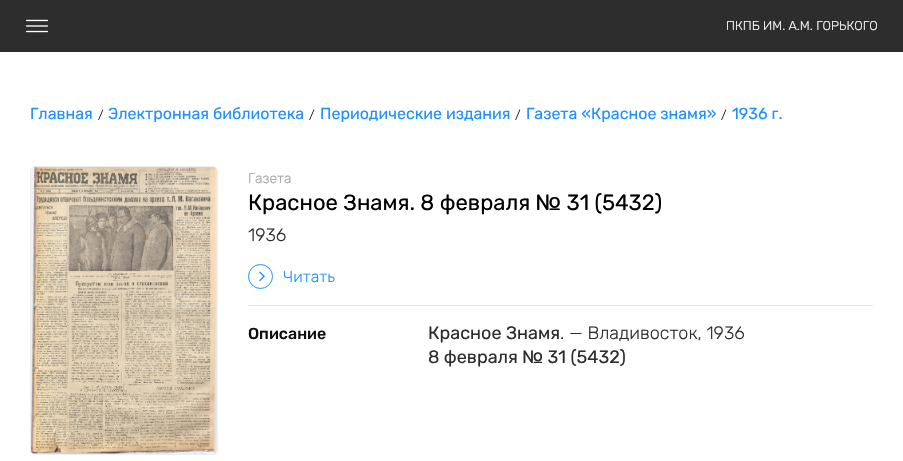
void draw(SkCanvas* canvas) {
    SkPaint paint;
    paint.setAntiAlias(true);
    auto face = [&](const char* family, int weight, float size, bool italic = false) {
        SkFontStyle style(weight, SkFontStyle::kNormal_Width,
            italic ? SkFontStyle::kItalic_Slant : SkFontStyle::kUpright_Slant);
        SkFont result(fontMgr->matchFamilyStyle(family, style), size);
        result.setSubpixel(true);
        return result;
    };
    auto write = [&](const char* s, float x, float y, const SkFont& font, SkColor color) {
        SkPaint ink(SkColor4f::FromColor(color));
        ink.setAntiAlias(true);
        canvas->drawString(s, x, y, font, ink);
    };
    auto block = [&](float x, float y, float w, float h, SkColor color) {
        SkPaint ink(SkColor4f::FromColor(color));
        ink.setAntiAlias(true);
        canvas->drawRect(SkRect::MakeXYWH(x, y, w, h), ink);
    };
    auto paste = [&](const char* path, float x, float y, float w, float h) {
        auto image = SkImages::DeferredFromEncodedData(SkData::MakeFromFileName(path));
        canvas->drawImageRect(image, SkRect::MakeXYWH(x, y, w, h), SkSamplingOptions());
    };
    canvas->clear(SK_ColorWHITE);
    block(0, 0, 903, 52, SkColorSetRGB(45, 45, 45));
    paste("pic1.png", 26, 19, 22, 14);
    auto kFont1 = face("Rubik", 300, 12.75f);
    write("ПКПБ ИМ. А.М. ГОРЬКОГО", 726, 30, kFont1, SK_ColorWHITE);
    auto kFont2 = face("Rubik", 400, 16);
    write("Главная", 30, 119, kFont2, SkColorSetRGB(30, 144, 255));
    auto kFont3 = face("Rubik", 300, 12);
    write("/", 98, 119, kFont3, SkColorSetRGB(15, 15, 15));
    write("Электронная библиотека", 108, 119, kFont2, SkColorSetRGB(30, 144, 255));
    write("/", 309, 119, kFont3, SkColorSetRGB(15, 15, 15));
    write("Периодические издания", 320, 119, kFont2, SkColorSetRGB(30, 144, 255));
    write("/", 515, 119, kFont3, SkColorSetRGB(15, 15, 15));
    write("Газета «Красное знамя»", 526, 119, kFont2, SkColorSetRGB(30, 144, 255));
    write("/", 721, 119, kFont3, SkColorSetRGB(15, 15, 15));
    write("1936 г.", 732, 119, kFont2, SkColorSetRGB(30, 144, 255));
    paint.setStyle(SkPaint::kStroke_Style);
    paint.setStrokeWidth(1);
    paint.setColor(SkColorSetRGB(238, 238, 238));
    canvas->drawRoundRect(SkRect::MakeXYWH(30.5f, 166.5f, 187, 288), 4.5f, 4.5f, paint);
    paste("pic2.png", 31, 167, 186, 287);
    auto kFont4 = face("Rubik", 300, 14);
    write("Газета", 248, 183, kFont4, SkColorSetRGB(162, 162, 162));
    auto kFont5 = face("Rubik", 400, 22);
    write("Красное Знамя. 8 февраля № 31 (5432)", 248, 210, kFont5, SK_ColorBLACK);
    auto kFont6 = face("Rubik", 300, 18);
    write("1936", 248, 241, kFont6, SkColorSetRGB(45, 45, 45));
    paint.setColor(SkColorSetRGB(30, 144, 255));
    canvas->drawCircle(260.5f, 276.5f, 12, paint);
    paste("pic3.png", 259, 271, 6, 11);
    auto kFont7 = face("Rubik", 300, 16);
    write("Читать", 283, 282, kFont7, SkColorSetRGB(30, 144, 255));
    block(248, 305, 625, 1, SkColorSetRGB(230, 230, 230));
    auto kFont8 = face("Rubik", 500, 16);
    write("Описание", 248, 339, kFont8, SkColorSetRGB(15, 15, 15));
    auto kFont9 = face("Rubik", 400, 18);
    write("Красное Знамя", 428, 339, kFont9, SkColorSetRGB(45, 45, 45));
    write(". — Владивосток, 1936", 560, 339, kFont6, SkColorSetRGB(45, 45, 45));
    write("8 февраля № 31 (5432)", 428, 363, kFont9, SkColorSetRGB(45, 45, 45));
}
